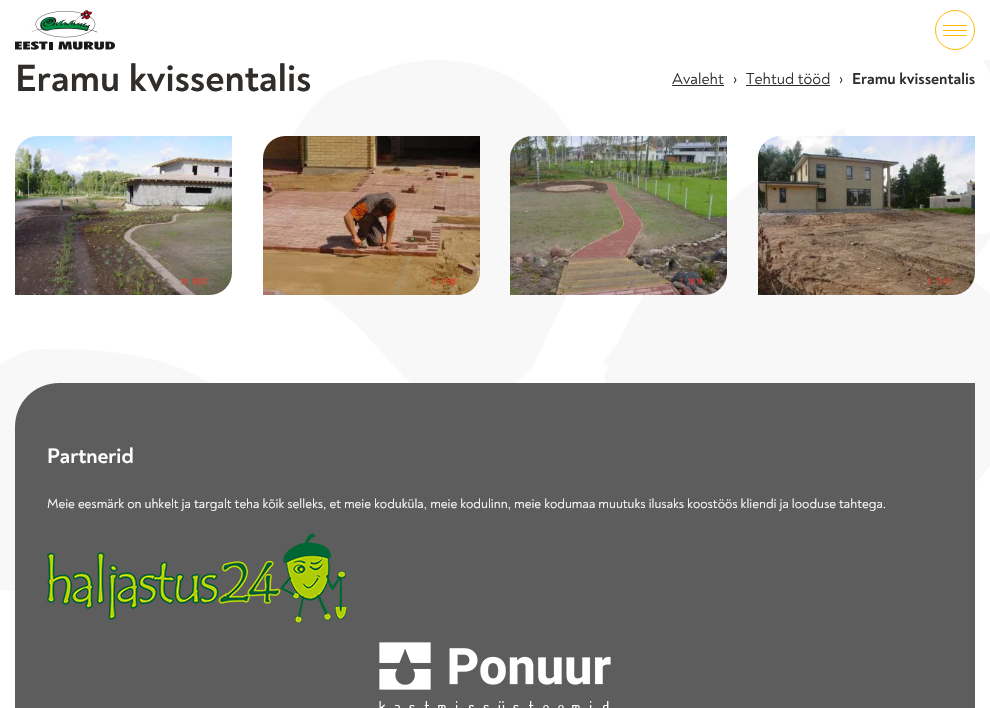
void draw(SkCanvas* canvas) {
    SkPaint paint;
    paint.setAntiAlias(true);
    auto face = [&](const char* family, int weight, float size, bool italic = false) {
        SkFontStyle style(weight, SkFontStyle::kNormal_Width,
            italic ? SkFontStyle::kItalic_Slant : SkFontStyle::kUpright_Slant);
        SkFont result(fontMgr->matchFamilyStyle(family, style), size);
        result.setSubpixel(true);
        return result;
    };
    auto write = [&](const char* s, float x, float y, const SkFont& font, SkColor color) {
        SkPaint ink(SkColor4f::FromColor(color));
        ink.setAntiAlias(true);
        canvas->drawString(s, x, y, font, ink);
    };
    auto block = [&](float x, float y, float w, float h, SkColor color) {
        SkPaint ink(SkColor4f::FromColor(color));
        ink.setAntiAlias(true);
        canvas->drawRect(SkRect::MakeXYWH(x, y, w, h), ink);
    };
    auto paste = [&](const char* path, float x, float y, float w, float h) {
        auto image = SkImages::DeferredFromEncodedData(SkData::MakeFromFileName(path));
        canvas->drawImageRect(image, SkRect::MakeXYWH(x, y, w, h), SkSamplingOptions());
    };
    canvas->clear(SK_ColorWHITE);
    paste("pic1.png", 15, 10, 100, 40);
    paint.setStyle(SkPaint::kStroke_Style);
    paint.setStrokeWidth(1);
    paint.setColor(SkColorSetRGB(255, 186, 10));
    canvas->drawCircle(955, 30, 19.5f, paint);
    block(943, 25, 24, 1, SkColorSetRGB(255, 186, 10));
    block(943, 30, 24, 1, SkColorSetRGB(255, 186, 10));
    block(943, 35, 24, 1, SkColorSetRGB(255, 186, 10));
    paste("pic2.png", 0, 60, 990, 531);
    auto kFont1 = face("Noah", 700, 38.5f);
    write("Eramu kvissentalis", 15, 91, kFont1, SkColorSetRGB(49, 45, 42));
    paste("pic7.png", 604, 60, 386, 323);
    auto kFont2 = face("Noah", 400, 16);
    write("Avaleht", 672, 84, kFont2, SkColorSetRGB(49, 45, 42));
    block(672, 85, 52, 1, SkColorSetRGB(49, 45, 42));
    write("›", 733, 84, kFont2, SkColorSetRGB(49, 45, 42));
    write("Tehtud tööd", 746, 84, kFont2, SkColorSetRGB(49, 45, 42));
    block(746, 85, 84, 1, SkColorSetRGB(49, 45, 42));
    write("›", 839, 84, kFont2, SkColorSetRGB(49, 45, 42));
    auto kFont3 = face("Noah", 700, 16);
    write("Eramu kvissentalis", 852, 84, kFont3, SkColorSetRGB(49, 45, 42));
    paste("pic3.png", 15, 136, 217, 159);
    paste("pic4.png", 263, 136, 217, 159);
    paste("pic5.png", 510, 136, 217, 159);
    paste("pic6.png", 758, 136, 217, 159);
    paint.setStyle(SkPaint::kFill_Style);
    paint.setColor(SkColorSetRGB(93, 93, 93));
    canvas->drawPath(SkPathBuilder().moveTo(59, 383).lineTo(975, 383).lineTo(975, 708).cubicTo(975, 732.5f, 955.5f, 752, 931, 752).lineTo(15, 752).lineTo(15, 427).cubicTo(15, 402.5f, 34.5f, 383, 59, 383).close().detach(), paint);
    auto kFont4 = face("Noah", 700, 21.5f);
    write("Partnerid", 47, 463, kFont4, SK_ColorWHITE);
    auto kFont5 = face("Noah", 400, 13.33f);
    write("Meie eesmärk on uhkelt ja targalt teha kõik selleks, et meie koduküla, meie kodulinn, meie kodumaa muutuks ilusaks koostöös kliendi ja looduse tahtega.", 47, 508, kFont5, SK_ColorWHITE);
    paste("pic8.png", 47, 533, 300, 90);
    paste("pic9.png", 379, 642, 232, 66);
}
